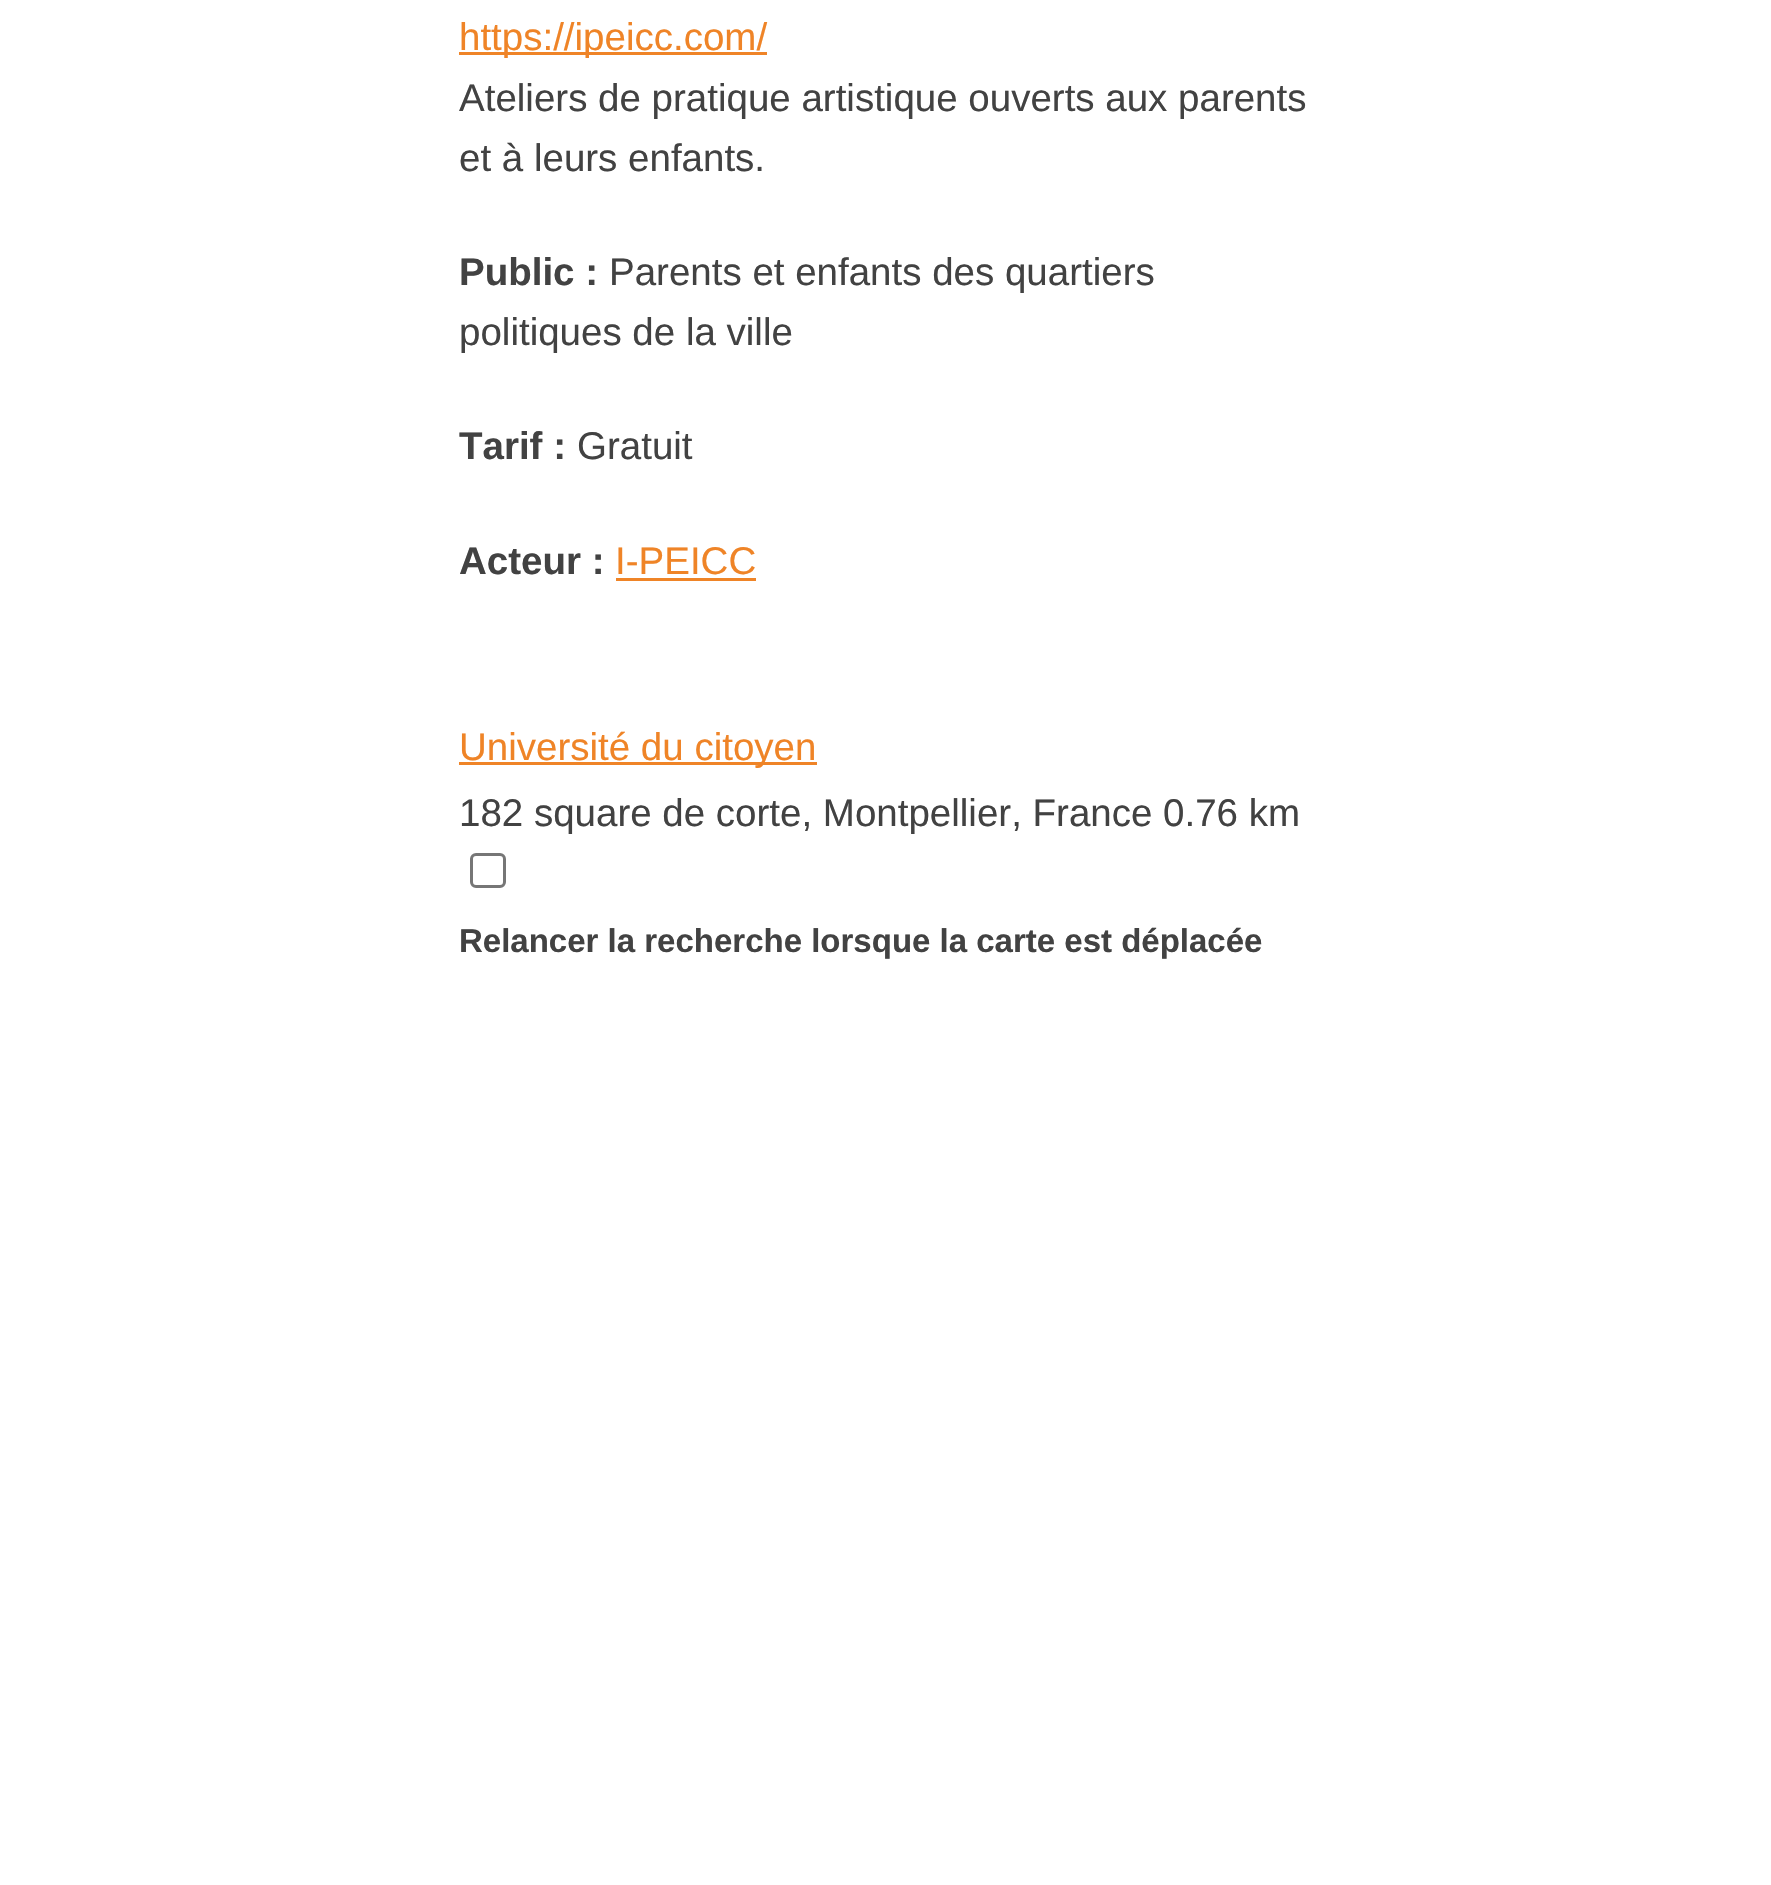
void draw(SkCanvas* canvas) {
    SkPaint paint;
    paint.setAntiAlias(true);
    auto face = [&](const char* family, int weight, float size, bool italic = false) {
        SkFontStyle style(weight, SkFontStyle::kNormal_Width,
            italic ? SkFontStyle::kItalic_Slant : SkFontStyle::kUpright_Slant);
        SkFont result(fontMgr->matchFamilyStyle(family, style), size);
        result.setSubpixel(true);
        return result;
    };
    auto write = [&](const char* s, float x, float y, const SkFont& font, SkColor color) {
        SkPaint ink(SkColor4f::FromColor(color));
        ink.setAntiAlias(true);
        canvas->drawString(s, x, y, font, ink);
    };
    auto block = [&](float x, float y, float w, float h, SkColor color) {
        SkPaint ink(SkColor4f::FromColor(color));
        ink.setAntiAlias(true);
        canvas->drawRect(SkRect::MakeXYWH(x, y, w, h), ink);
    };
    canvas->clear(SK_ColorWHITE);
    block(459, 52, 308, 3, SkColorSetRGB(239, 132, 39));
    auto kFont1 = face("Liberation Sans", 400, 38.5f);
    write("https://ipeicc.com/", 459, 50, kFont1, SkColorSetRGB(239, 132, 39));
    write("Ateliers de pratique artistique ouverts aux parents", 459, 111, kFont1, SkColorSetRGB(66, 66, 66));
    write("et à leurs enfants.", 459, 171, kFont1, SkColorSetRGB(66, 66, 66));
    auto kFont2 = face("Liberation Sans", 700, 38.5f);
    write("Public :", 459, 285, kFont2, SkColorSetRGB(66, 66, 66));
    write("Parents et enfants des quartiers", 609, 285, kFont1, SkColorSetRGB(66, 66, 66));
    write("politiques de la ville", 459, 345, kFont1, SkColorSetRGB(66, 66, 66));
    write("Tarif :", 459, 459, kFont2, SkColorSetRGB(66, 66, 66));
    write("Gratuit", 577, 459, kFont1, SkColorSetRGB(66, 66, 66));
    write("Acteur :", 459, 574, kFont2, SkColorSetRGB(66, 66, 66));
    write("I-PEICC", 615, 574, kFont1, SkColorSetRGB(239, 132, 39));
    block(616, 578, 140, 3, SkColorSetRGB(239, 132, 39));
    block(459, 762, 358, 3, SkColorSetRGB(239, 132, 39));
    write("Université du citoyen", 459, 760, kFont1, SkColorSetRGB(239, 132, 39));
    write("182 square de corte, Montpellier, France 0.76 km", 459, 826, kFont1, SkColorSetRGB(66, 66, 66));
    paint.setStyle(SkPaint::kStroke_Style);
    paint.setStrokeWidth(3);
    paint.setColor(SkColorSetRGB(118, 118, 118));
    canvas->drawRoundRect(SkRect::MakeXYWH(471.5f, 854.5f, 33, 32), 4.5f, 4.5f, paint);
    auto kFont3 = face("Liberation Sans", 700, 33);
    write("Relancer la recherche lorsque la carte est déplacée", 459, 952, kFont3, SkColorSetRGB(66, 66, 66));
}
